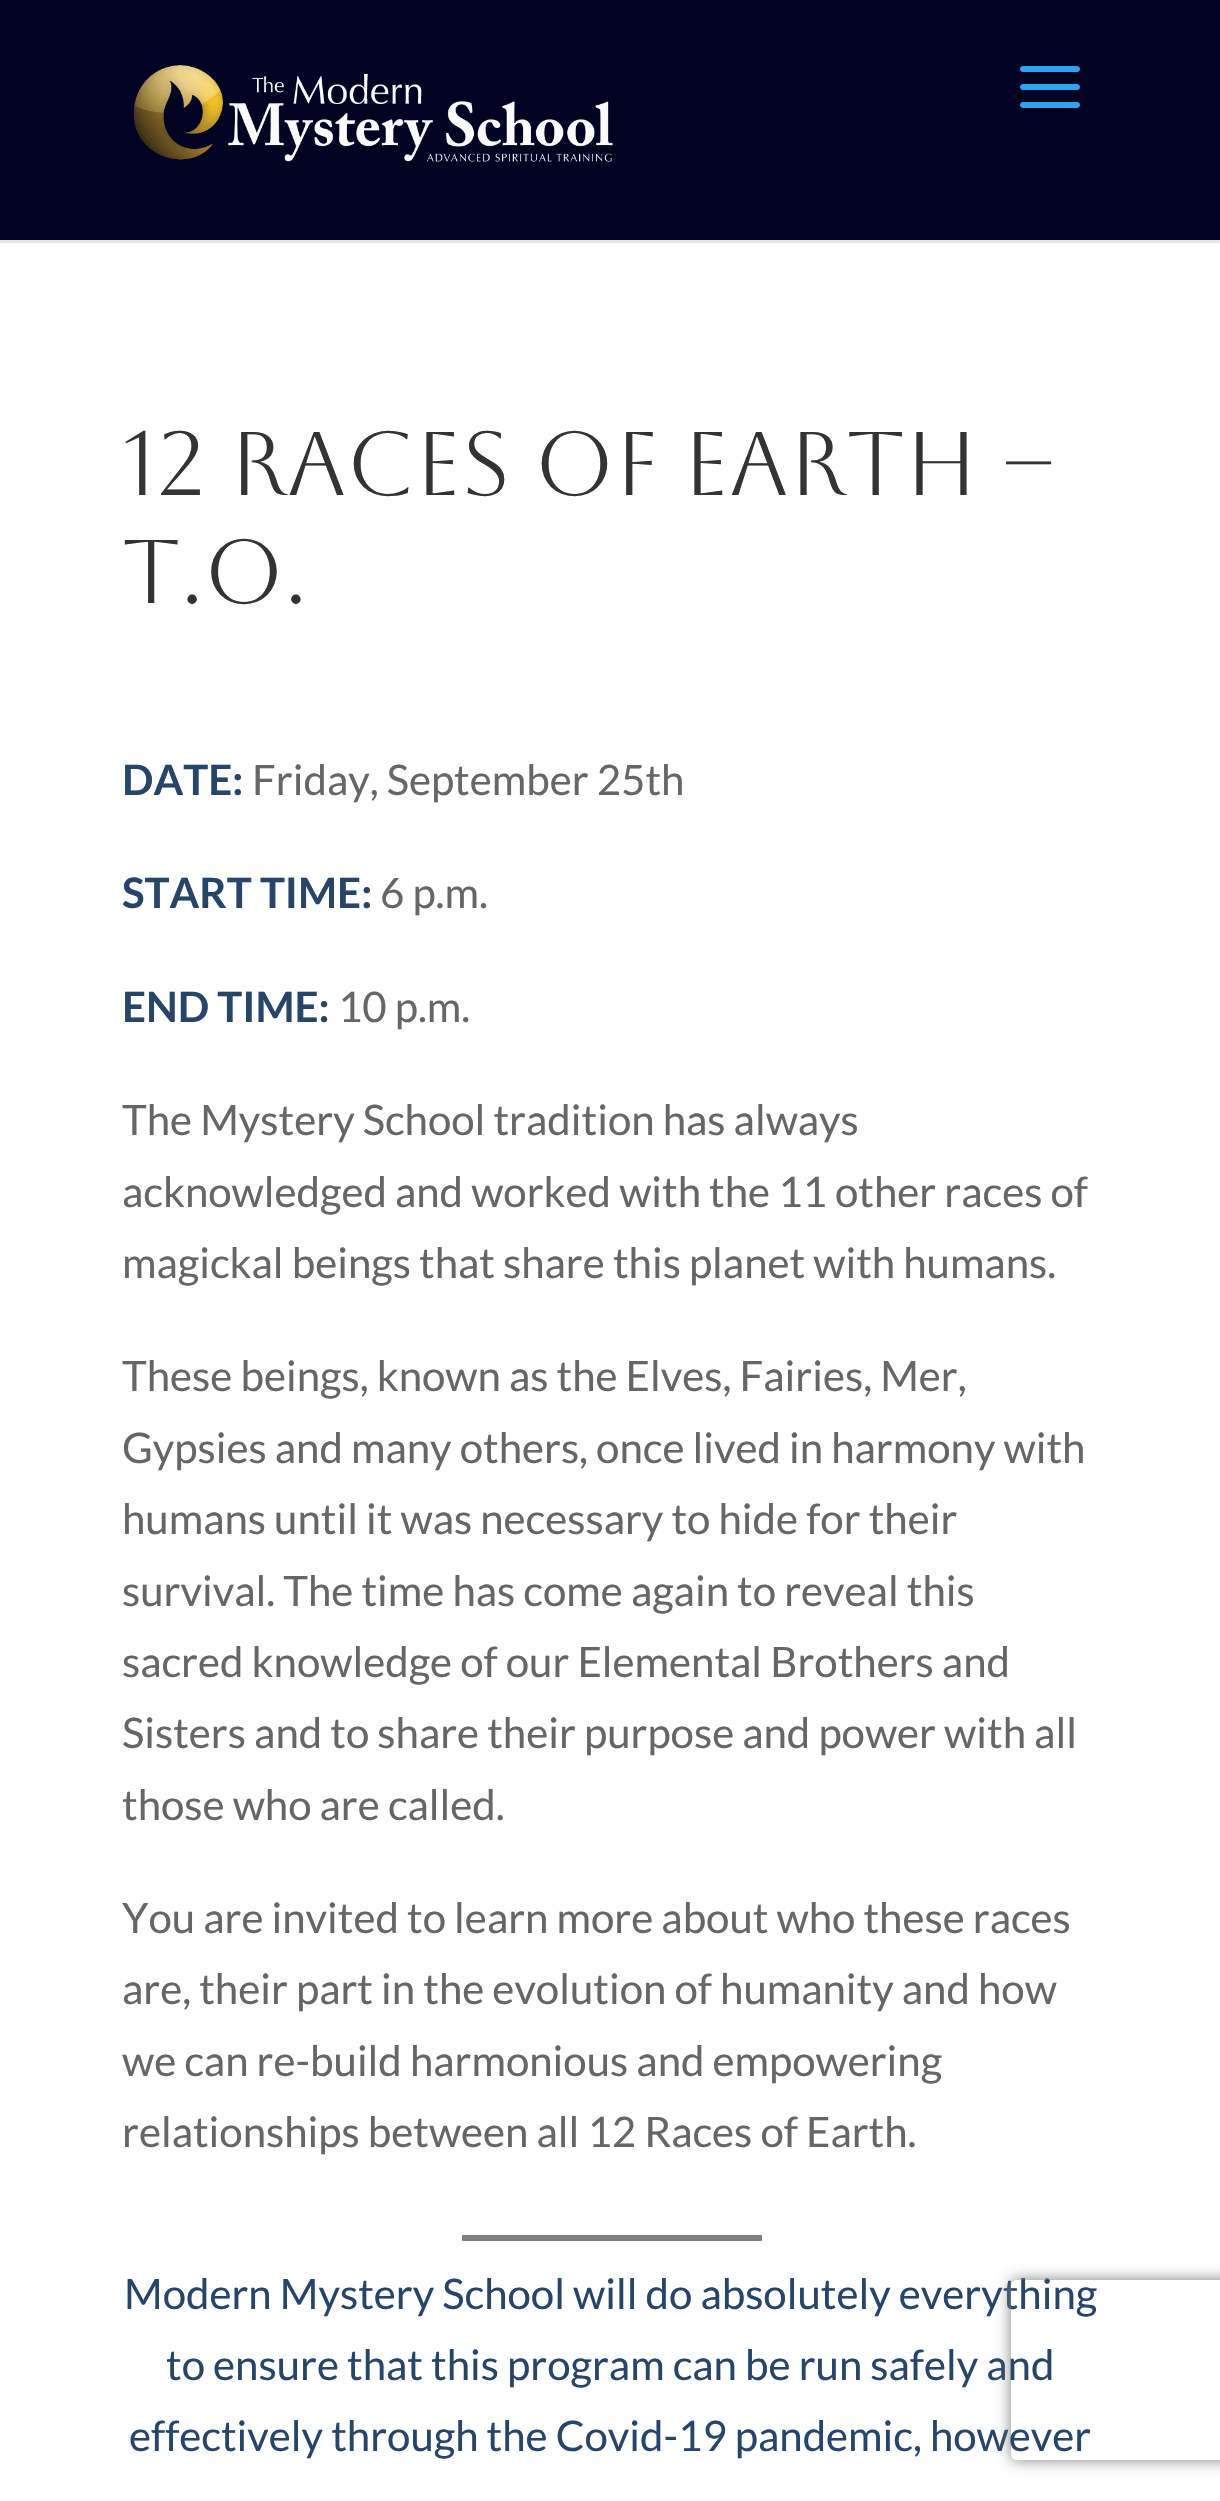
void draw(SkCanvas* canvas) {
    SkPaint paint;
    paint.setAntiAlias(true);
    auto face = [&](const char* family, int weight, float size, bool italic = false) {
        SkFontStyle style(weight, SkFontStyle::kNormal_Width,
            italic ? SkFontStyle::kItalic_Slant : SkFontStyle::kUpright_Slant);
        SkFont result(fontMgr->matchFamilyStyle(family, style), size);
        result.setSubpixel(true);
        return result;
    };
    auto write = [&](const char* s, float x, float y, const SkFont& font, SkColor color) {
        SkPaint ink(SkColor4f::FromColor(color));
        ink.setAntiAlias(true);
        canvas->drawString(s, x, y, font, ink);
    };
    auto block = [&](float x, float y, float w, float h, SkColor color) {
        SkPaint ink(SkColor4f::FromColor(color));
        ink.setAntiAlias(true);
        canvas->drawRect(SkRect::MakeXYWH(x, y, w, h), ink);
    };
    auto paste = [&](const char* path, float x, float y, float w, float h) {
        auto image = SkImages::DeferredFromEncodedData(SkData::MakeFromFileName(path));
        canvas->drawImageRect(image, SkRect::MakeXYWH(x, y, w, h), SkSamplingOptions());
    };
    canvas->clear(SK_ColorWHITE);
    block(0, 240, 1220, 3, SkColorSetRGB(230, 230, 230));
    block(0, 0, 1220, 240, SkColorSetRGB(0, 3, 33));
    paste("pic1.png", 134, 65, 479, 97);
    paste("pic2.png", 1020, 66, 60, 42);
    auto kFont1 = face("Aboreto", 400, 90);
    write("12 Races of Earth –", 122, 495, kFont1, SkColorSetRGB(51, 51, 51));
    write("T.O.", 122, 603, kFont1, SkColorSetRGB(51, 51, 51));
    auto kFont2 = face("Lato", 700, 42);
    write("DATE:", 122, 795, kFont2, SkColorSetRGB(39, 69, 104));
    auto kFont3 = face("Lato", 400, 42);
    write("Friday, September 25th", 252, 795, kFont3, SkColorSetRGB(102, 102, 102));
    write("START TIME:", 122, 908, kFont2, SkColorSetRGB(39, 69, 104));
    write("6 p.m.", 380, 908, kFont3, SkColorSetRGB(102, 102, 102));
    write("END TIME:", 122, 1022, kFont2, SkColorSetRGB(39, 69, 104));
    write("10 p.m.", 338, 1022, kFont3, SkColorSetRGB(102, 102, 102));
    write("The Mystery School tradition has always", 122, 1135, kFont3, SkColorSetRGB(102, 102, 102));
    write("acknowledged and worked with the 11 other races of", 122, 1207, kFont3, SkColorSetRGB(102, 102, 102));
    write("magickal beings that share this planet with humans.", 122, 1278, kFont3, SkColorSetRGB(102, 102, 102));
    write("These beings, known as the Elves, Fairies, Mer,", 122, 1391, kFont3, SkColorSetRGB(102, 102, 102));
    write("Gypsies and many others, once lived in harmony with", 122, 1463, kFont3, SkColorSetRGB(102, 102, 102));
    write("humans until it was necessary to hide for their", 122, 1534, kFont3, SkColorSetRGB(102, 102, 102));
    write("survival. The time has come again to reveal this", 122, 1606, kFont3, SkColorSetRGB(102, 102, 102));
    write("sacred knowledge of our Elemental Brothers and", 122, 1677, kFont3, SkColorSetRGB(102, 102, 102));
    write("Sisters and to share their purpose and power with all", 122, 1748, kFont3, SkColorSetRGB(102, 102, 102));
    write("those who are called.", 122, 1820, kFont3, SkColorSetRGB(102, 102, 102));
    write("You are invited to learn more about who these races", 122, 1933, kFont3, SkColorSetRGB(102, 102, 102));
    write("are, their part in the evolution of humanity and how", 122, 2004, kFont3, SkColorSetRGB(102, 102, 102));
    write("we can re-build harmonious and empowering", 122, 2076, kFont3, SkColorSetRGB(102, 102, 102));
    write("relationships between all 12 Races of Earth.", 122, 2147, kFont3, SkColorSetRGB(102, 102, 102));
    block(462, 2235, 300, 6, SkColorSetRGB(128, 128, 128));
    write("Modern Mystery School will do absolutely everything", 124, 2309, kFont3, SkColorSetRGB(39, 69, 104));
    write("to ensure that this program can be run safely and", 166, 2380, kFont3, SkColorSetRGB(39, 69, 104));
    write("effectively through the Covid-19 pandemic, however", 129, 2451, kFont3, SkColorSetRGB(39, 69, 104));
    canvas->save();
    canvas->clipPath(SkPathBuilder(SkPathFillType::kEvenOdd).moveTo(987, 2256).lineTo(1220, 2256).lineTo(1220, 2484).lineTo(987, 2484).close().moveTo(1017, 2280).lineTo(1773, 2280).cubicTo(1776.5f, 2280, 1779, 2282.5f, 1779, 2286).lineTo(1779, 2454).cubicTo(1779, 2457.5f, 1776.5f, 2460, 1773, 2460).lineTo(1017, 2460).cubicTo(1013.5f, 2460, 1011, 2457.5f, 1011, 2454).lineTo(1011, 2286).cubicTo(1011, 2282.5f, 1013.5f, 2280, 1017, 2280).close().detach(), true);
    paint.setColor(SkColorSetRGB(128, 128, 128));
    paint.setMaskFilter(SkMaskFilter::MakeBlur(kNormal_SkBlurStyle, 7.5f));
    canvas->drawRoundRect(SkRect::MakeXYWH(1011, 2280, 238, 180), 6, 6, paint);
    paint.setMaskFilter(nullptr);
    canvas->restore();
}
